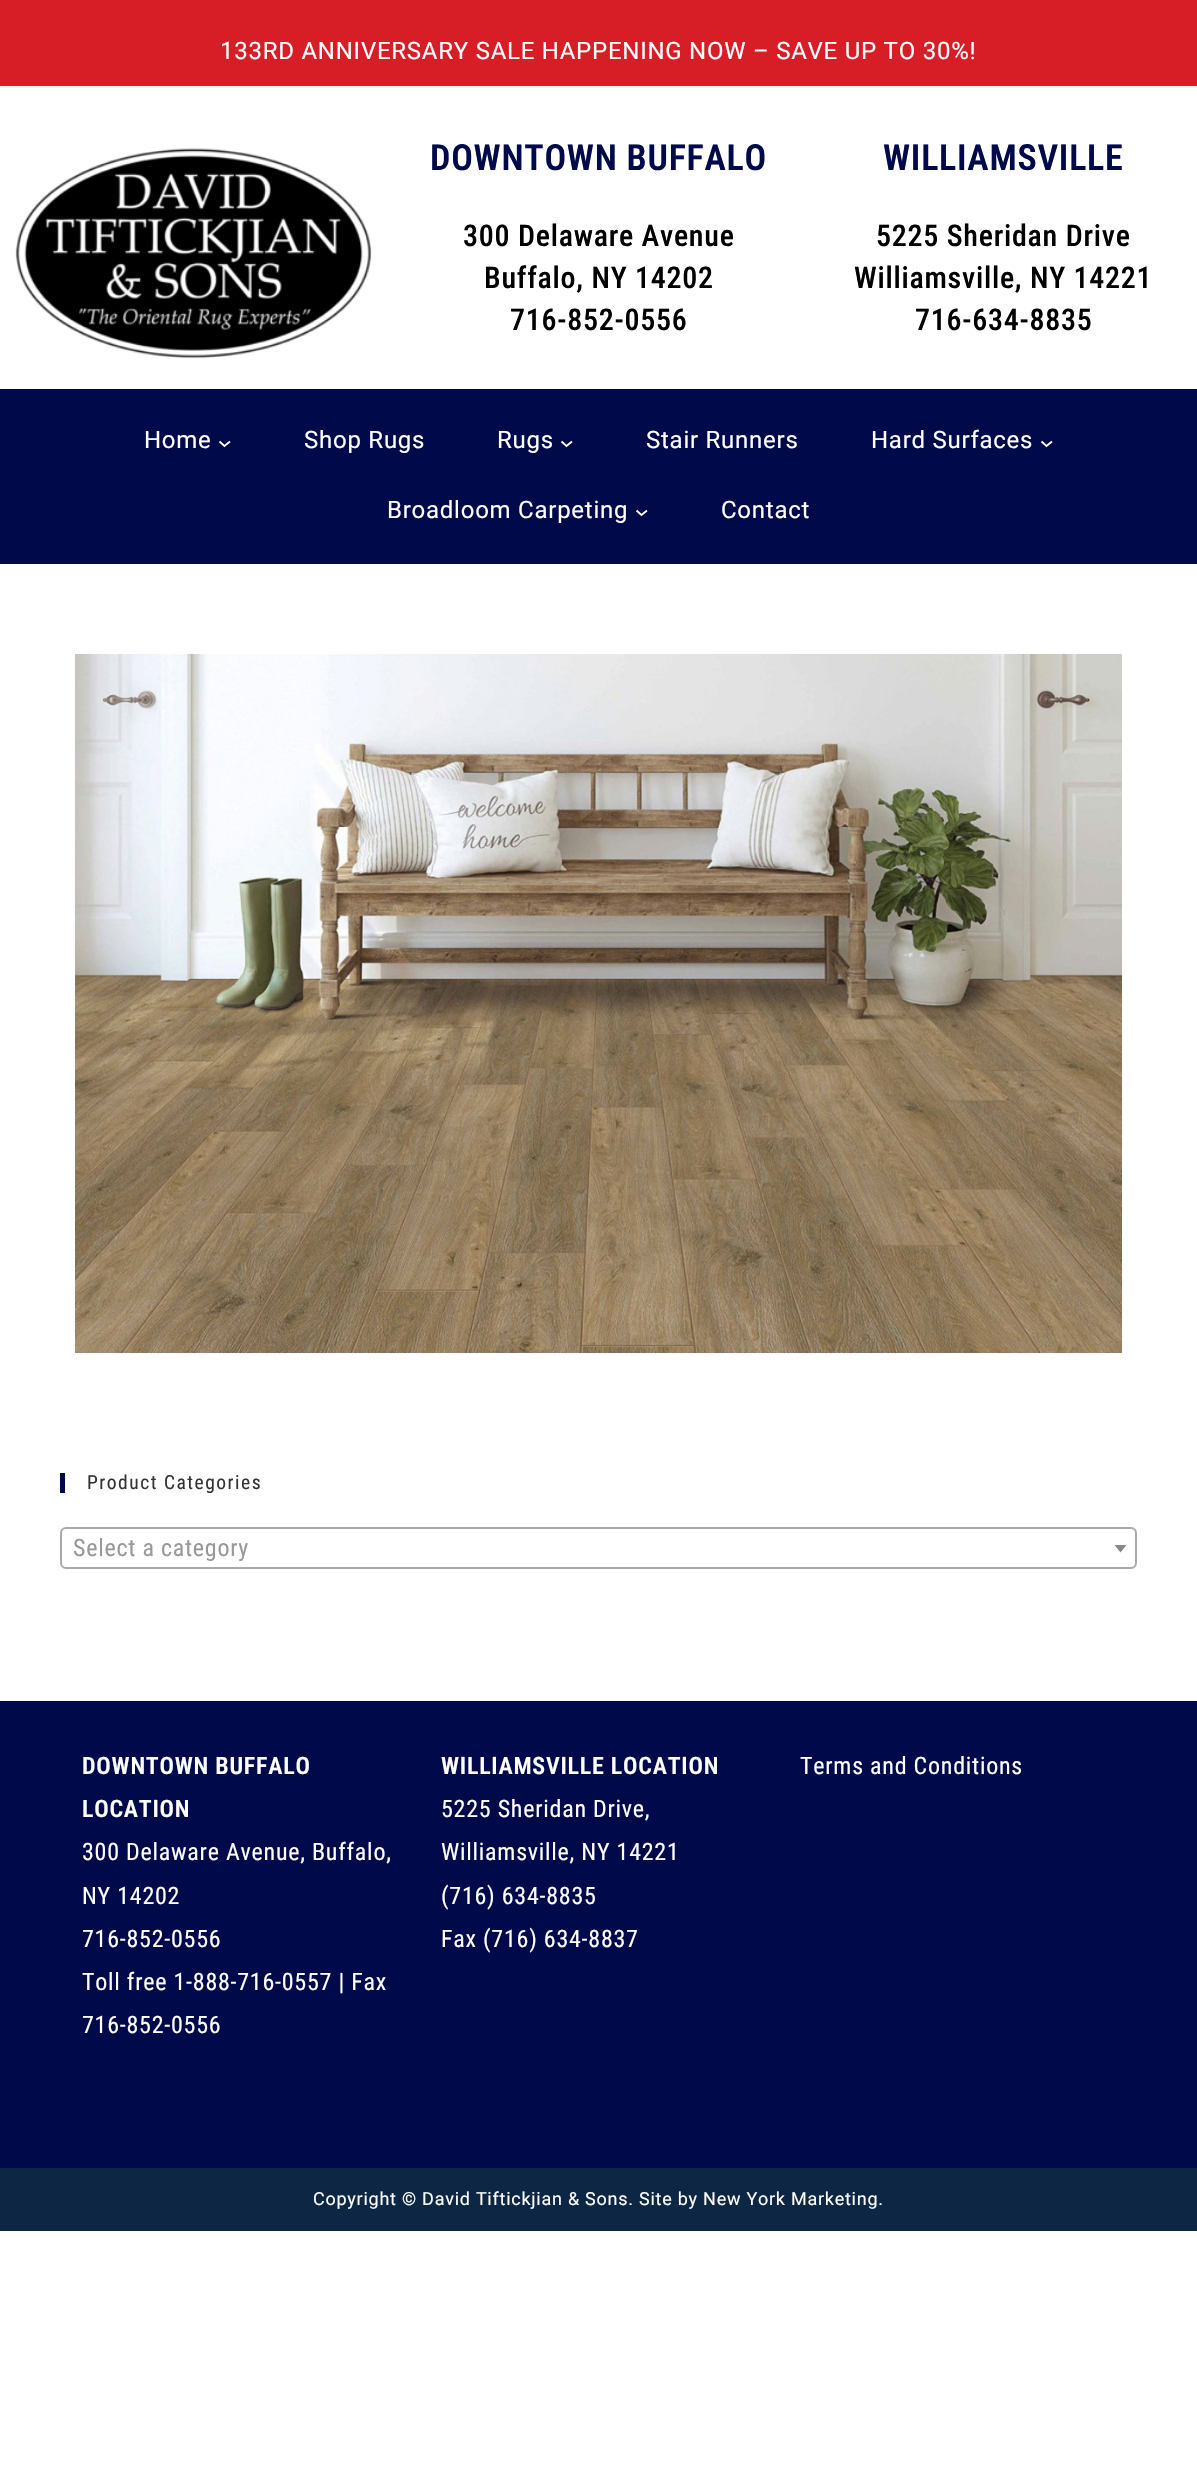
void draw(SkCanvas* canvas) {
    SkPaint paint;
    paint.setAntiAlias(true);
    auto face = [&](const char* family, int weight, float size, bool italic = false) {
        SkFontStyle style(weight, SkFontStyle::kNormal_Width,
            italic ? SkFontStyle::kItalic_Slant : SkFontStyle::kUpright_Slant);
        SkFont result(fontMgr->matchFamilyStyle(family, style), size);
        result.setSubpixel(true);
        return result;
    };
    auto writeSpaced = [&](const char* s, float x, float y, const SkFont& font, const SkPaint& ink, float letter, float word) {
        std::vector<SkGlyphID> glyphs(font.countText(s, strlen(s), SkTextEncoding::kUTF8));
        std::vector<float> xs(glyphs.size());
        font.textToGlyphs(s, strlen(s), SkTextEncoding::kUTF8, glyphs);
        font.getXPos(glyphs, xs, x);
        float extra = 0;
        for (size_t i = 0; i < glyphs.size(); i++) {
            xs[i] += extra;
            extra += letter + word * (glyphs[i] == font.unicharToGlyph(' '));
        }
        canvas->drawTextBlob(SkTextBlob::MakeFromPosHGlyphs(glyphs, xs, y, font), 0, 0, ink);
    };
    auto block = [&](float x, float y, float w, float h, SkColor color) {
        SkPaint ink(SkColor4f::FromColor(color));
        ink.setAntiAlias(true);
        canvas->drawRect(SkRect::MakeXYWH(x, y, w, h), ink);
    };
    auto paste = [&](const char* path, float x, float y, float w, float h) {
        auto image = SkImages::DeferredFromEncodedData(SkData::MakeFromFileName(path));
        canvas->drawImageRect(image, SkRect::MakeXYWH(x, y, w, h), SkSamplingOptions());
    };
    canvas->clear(SK_ColorWHITE);
    block(0, 0, 1197, 86, SkColorSetRGB(215, 30, 38));
    block(0, 86, 1197, 2, SkColorSetRGB(241, 241, 241));
    auto kFont1 = face("Roboto", 400, 24);
    paint.setColor(SK_ColorWHITE);
    writeSpaced("133RD ANNIVERSARY SALE HAPPENING NOW – SAVE UP TO 30%!", 220, 59, kFont1, paint, 0.75f, 0);
    paste("pic1.png", 15, 148, 357, 211);
    auto kFont2 = face("Roboto Condensed", 600, 36);
    paint.setColor(SkColorSetRGB(0, 10, 75));
    writeSpaced("DOWNTOWN BUFFALO", 430, 170, kFont2, paint, 0.75f, 0);
    auto kFont3 = face("Roboto Condensed", 500, 30);
    paint.setColor(SK_ColorBLACK);
    writeSpaced("300 Delaware Avenue", 463, 246, kFont3, paint, 0.75f, 0);
    writeSpaced("Buffalo, NY 14202", 484, 288, kFont3, paint, 0.75f, 0);
    writeSpaced("716-852-0556", 510, 330, kFont3, paint, 0.75f, 0);
    paint.setColor(SkColorSetRGB(0, 10, 75));
    writeSpaced("WILLIAMSVILLE", 883, 170, kFont2, paint, 0.75f, 0);
    paint.setColor(SK_ColorBLACK);
    writeSpaced("5225 Sheridan Drive", 876, 246, kFont3, paint, 0.75f, 0);
    writeSpaced("Williamsville, NY 14221", 854, 288, kFont3, paint, 0.75f, 0);
    writeSpaced("716-634-8835", 915, 330, kFont3, paint, 0.75f, 0);
    block(0, 389, 1197, 175, SkColorSetRGB(0, 10, 75));
    paint.setColor(SK_ColorWHITE);
    writeSpaced("Home", 144, 448, kFont1, paint, 0.75f, 0);
    paint.setStyle(SkPaint::kStroke_Style);
    paint.setStrokeWidth(1.8f);
    canvas->drawPath(SkPathBuilder().moveTo(219.5f, 441.5f).lineTo(224.5f, 446).lineTo(230, 441.5f).detach(), paint);
    paint.setStyle(SkPaint::kFill_Style);
    writeSpaced("Shop Rugs", 304, 448, kFont1, paint, 0.75f, 0);
    writeSpaced("Rugs", 497, 448, kFont1, paint, 0.75f, 0);
    paint.setStyle(SkPaint::kStroke_Style);
    canvas->drawPath(SkPathBuilder().moveTo(561.5f, 441.5f).lineTo(566.5f, 446).lineTo(572, 441.5f).detach(), paint);
    paint.setStyle(SkPaint::kFill_Style);
    writeSpaced("Stair Runners", 646, 448, kFont1, paint, 0.75f, 0);
    writeSpaced("Hard Surfaces", 871, 448, kFont1, paint, 0.75f, 0);
    paint.setStyle(SkPaint::kStroke_Style);
    canvas->drawPath(SkPathBuilder().moveTo(1041.5f, 441.5f).lineTo(1046.5f, 446).lineTo(1052, 441.5f).detach(), paint);
    paint.setStyle(SkPaint::kFill_Style);
    writeSpaced("Broadloom Carpeting", 387, 518, kFont1, paint, 0.75f, 0);
    paint.setStyle(SkPaint::kStroke_Style);
    canvas->drawPath(SkPathBuilder().moveTo(636.5f, 510.5f).lineTo(641.5f, 515).lineTo(647, 510.5f).detach(), paint);
    paint.setStyle(SkPaint::kFill_Style);
    writeSpaced("Contact", 721, 518, kFont1, paint, 0.75f, 0);
    paste("pic2.png", 75, 654, 1047, 699);
    block(60, 1473, 5, 20, SkColorSetRGB(0, 10, 75));
    auto kFont4 = face("Roboto Condensed", 400, 19.5f);
    paint.setColor(SkColorSetRGB(51, 51, 51));
    writeSpaced("Product Categories", 87, 1489, kFont4, paint, 1.5f, 0);
    paint.setStyle(SkPaint::kStroke_Style);
    paint.setStrokeWidth(2);
    paint.setColor(SkColorSetRGB(170, 170, 170));
    canvas->drawRoundRect(SkRect::MakeXYWH(61, 1528, 1075, 40), 5, 5, paint);
    auto kFont5 = face("Roboto Condensed", 400, 24);
    paint.setStyle(SkPaint::kFill_Style);
    paint.setColor(SkColorSetRGB(153, 153, 153));
    writeSpaced("Select a category", 73, 1556, kFont5, paint, 0.75f, 0);
    paint.setColor(SkColorSetRGB(136, 136, 136));
    canvas->drawPath(SkPathBuilder().moveTo(1114.5f, 1545).lineTo(1126.5f, 1545).lineTo(1120.5f, 1552.5f).close().detach(), paint);
    block(0, 1701, 1197, 467, SkColorSetRGB(0, 10, 75));
    auto kFont6 = face("Roboto Condensed", 600, 24);
    paint.setColor(SK_ColorWHITE);
    writeSpaced("DOWNTOWN BUFFALO", 82, 1774, kFont6, paint, 0.75f, 0);
    writeSpaced("LOCATION", 82, 1817, kFont6, paint, 0.75f, 0);
    writeSpaced("300 Delaware Avenue, Buffalo,", 82, 1860, kFont5, paint, 0.75f, 0);
    writeSpaced("NY 14202", 82, 1904, kFont5, paint, 0.75f, 0);
    writeSpaced("716-852-0556", 82, 1947, kFont5, paint, 0.75f, 0);
    writeSpaced("Toll free 1-888-716-0557 | Fax", 82, 1990, kFont5, paint, 0.75f, 0);
    writeSpaced("716-852-0556", 82, 2033, kFont5, paint, 0.75f, 0);
    writeSpaced("WILLIAMSVILLE LOCATION", 441, 1774, kFont6, paint, 0.75f, 0);
    writeSpaced("5225 Sheridan Drive,", 441, 1817, kFont5, paint, 0.75f, 0);
    writeSpaced("Williamsville, NY 14221", 441, 1860, kFont5, paint, 0.75f, 0);
    writeSpaced("(716) 634-8835", 441, 1904, kFont5, paint, 0.75f, 0);
    writeSpaced("Fax (716) 634-8837", 441, 1947, kFont5, paint, 0.75f, 0);
    writeSpaced("Terms and Conditions", 800, 1774, kFont5, paint, 0.75f, 0);
    block(0, 2168, 1197, 63, SkColorSetRGB(13, 38, 68));
    auto kFont7 = face("Roboto", 400, 18);
    writeSpaced("Copyright © David Tiftickjian & Sons. Site by New York Marketing.", 313, 2205, kFont7, paint, 0.75f, 0);
}
